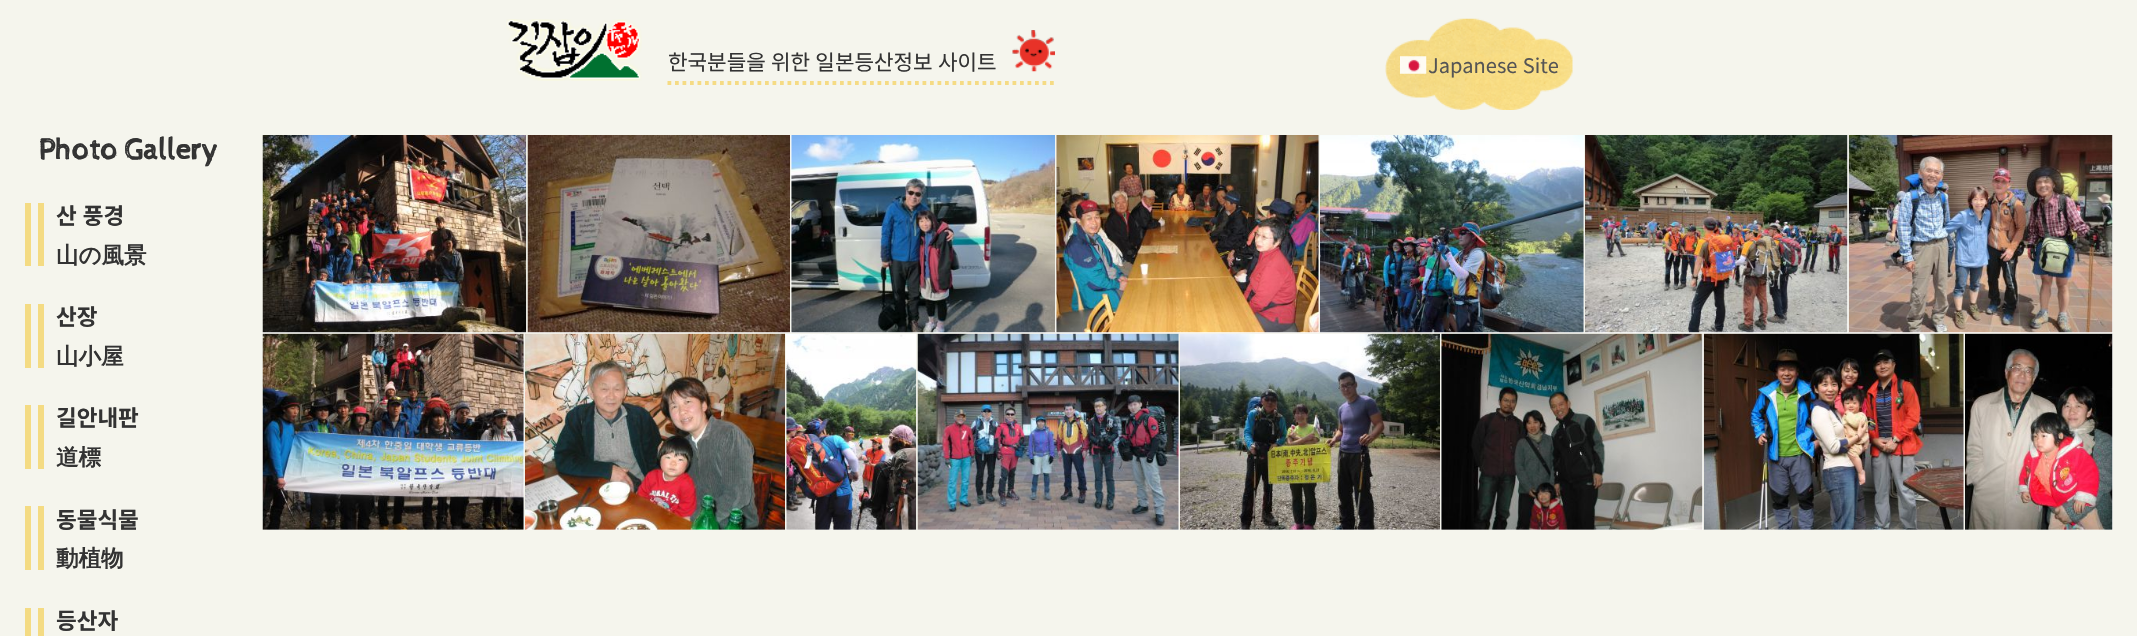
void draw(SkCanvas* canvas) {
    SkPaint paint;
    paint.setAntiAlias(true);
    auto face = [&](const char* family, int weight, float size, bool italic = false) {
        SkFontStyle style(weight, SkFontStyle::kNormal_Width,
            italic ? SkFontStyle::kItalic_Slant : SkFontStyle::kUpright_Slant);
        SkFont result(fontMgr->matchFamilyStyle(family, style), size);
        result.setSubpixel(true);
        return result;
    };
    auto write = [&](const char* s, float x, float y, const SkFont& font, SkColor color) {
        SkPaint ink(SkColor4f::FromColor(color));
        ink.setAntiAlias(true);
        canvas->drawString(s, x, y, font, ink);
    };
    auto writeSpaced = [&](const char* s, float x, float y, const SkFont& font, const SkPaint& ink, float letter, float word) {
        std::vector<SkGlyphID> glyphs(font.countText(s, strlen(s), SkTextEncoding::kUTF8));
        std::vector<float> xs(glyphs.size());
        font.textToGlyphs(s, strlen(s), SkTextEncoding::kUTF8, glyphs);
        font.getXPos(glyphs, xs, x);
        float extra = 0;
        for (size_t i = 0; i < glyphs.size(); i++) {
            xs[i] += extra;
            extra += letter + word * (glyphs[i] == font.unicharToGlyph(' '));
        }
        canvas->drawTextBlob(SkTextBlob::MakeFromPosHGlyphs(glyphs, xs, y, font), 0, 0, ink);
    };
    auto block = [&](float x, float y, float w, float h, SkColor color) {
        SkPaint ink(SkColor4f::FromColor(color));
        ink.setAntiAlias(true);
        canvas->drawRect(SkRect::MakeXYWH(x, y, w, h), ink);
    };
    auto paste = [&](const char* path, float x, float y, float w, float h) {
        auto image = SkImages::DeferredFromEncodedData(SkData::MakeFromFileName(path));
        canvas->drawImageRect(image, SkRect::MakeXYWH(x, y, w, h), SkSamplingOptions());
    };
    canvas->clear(SkColorSetRGB(245, 245, 237));
    paste("pic1.png", 506, 19, 136, 62);
    paste("pic2.png", 1012, 30, 43, 42);
    paint.setStyle(SkPaint::kStroke_Style);
    paint.setStrokeWidth(3.8f);
    paint.setColor(SkColorSetRGB(245, 219, 132));
    paint.setPathEffect(SkDashPathEffect::Make({{3.75f, 3.75f}}, 0));
    canvas->drawPath(SkPathBuilder().moveTo(667.5f, 83).lineTo(1055, 83).detach(), paint);
    paint.setPathEffect(nullptr);
    auto kFont1 = face("Noto Sans KR", 400, 21.25f);
    paint.setStyle(SkPaint::kFill_Style);
    paint.setColor(SkColorSetRGB(51, 51, 51));
    writeSpaced("한국분들을 위한 일본등산정보 사이트", 668, 70, kFont1, paint, 0, 0.5f);
    paste("pic3.png", 1385, 18, 188, 92);
    paste("pic4.png", 1400, 56, 27, 18);
    auto kFont2 = face("Noto Sans KR", 400, 20);
    paint.setColor(SkColorSetRGB(85, 85, 85));
    writeSpaced("Japanese Site", 1428, 73, kFont2, paint, 0, 1);
    auto kFont3 = face("Cabin Sketch", 700, 30);
    write("Photo Gallery", 38, 159, kFont3, SkColorSetRGB(51, 51, 51));
    block(25, 203, 6, 63, SkColorSetRGB(244, 219, 131));
    block(38, 203, 6, 63, SkColorSetRGB(244, 219, 131));
    auto kFont4 = face("Noto Sans KR", 700, 22.5f);
    paint.setColor(SkColorSetRGB(51, 51, 51));
    writeSpaced("산 풍경", 56, 224, kFont4, paint, 0, 1);
    auto kFont5 = face("WenQuanYi Zen Hei", 700, 22.5f);
    write("山の風景", 56, 263, kFont5, SkColorSetRGB(51, 51, 51));
    block(25, 304, 6, 64, SkColorSetRGB(244, 219, 131));
    block(38, 304, 6, 64, SkColorSetRGB(244, 219, 131));
    write("산장", 56, 325, kFont4, SkColorSetRGB(51, 51, 51));
    write("山小屋", 56, 364, kFont5, SkColorSetRGB(51, 51, 51));
    block(25, 405, 6, 64, SkColorSetRGB(244, 219, 131));
    block(38, 405, 6, 64, SkColorSetRGB(244, 219, 131));
    write("길안내판", 56, 426, kFont4, SkColorSetRGB(51, 51, 51));
    write("道標", 56, 465, kFont5, SkColorSetRGB(51, 51, 51));
    block(25, 506, 6, 64, SkColorSetRGB(244, 219, 131));
    block(38, 506, 6, 64, SkColorSetRGB(244, 219, 131));
    write("동물식물", 56, 528, kFont4, SkColorSetRGB(51, 51, 51));
    write("動植物", 56, 566, kFont5, SkColorSetRGB(51, 51, 51));
    block(25, 608, 6, 28, SkColorSetRGB(244, 219, 131));
    block(38, 608, 6, 28, SkColorSetRGB(244, 219, 131));
    write("등산자", 56, 629, kFont4, SkColorSetRGB(51, 51, 51));
    block(263, 332, 263, 1, SK_ColorWHITE);
    paste("pic5.png", 262, 135, 265, 198);
    block(528, 332, 262, 1, SK_ColorWHITE);
    paste("pic6.png", 527, 135, 263, 198);
    block(791, 135, 264, 198, SK_ColorWHITE);
    paste("pic7.png", 791, 135, 264, 198);
    block(1056, 135, 263, 198, SK_ColorWHITE);
    paste("pic8.png", 1056, 135, 263, 198);
    block(1320, 135, 264, 198, SK_ColorWHITE);
    paste("pic9.png", 1320, 135, 264, 198);
    block(1585, 135, 263, 198, SK_ColorWHITE);
    paste("pic10.png", 1585, 135, 263, 198);
    block(1849, 135, 264, 198, SK_ColorWHITE);
    paste("pic11.png", 1848, 135, 265, 198);
    block(263, 334, 261, 196, SK_ColorWHITE);
    paste("pic12.png", 262, 333, 262, 197);
    block(525, 529, 260, 1, SK_ColorWHITE);
    paste("pic13.png", 525, 333, 260, 197);
    block(786, 334, 130, 196, SK_ColorWHITE);
    paste("pic14.png", 786, 334, 131, 196);
    block(918, 334, 261, 196, SK_ColorWHITE);
    paste("pic15.png", 917, 333, 262, 197);
    block(1180, 529, 260, 1, SK_ColorWHITE);
    paste("pic16.png", 1180, 333, 260, 197);
    block(1441, 334, 262, 196, SK_ColorWHITE);
    paste("pic17.png", 1441, 333, 262, 197);
    block(1704, 334, 260, 196, SK_ColorWHITE);
    paste("pic18.png", 1703, 333, 261, 197);
    block(1965, 334, 148, 196, SK_ColorWHITE);
    paste("pic19.png", 1965, 333, 148, 197);
}
